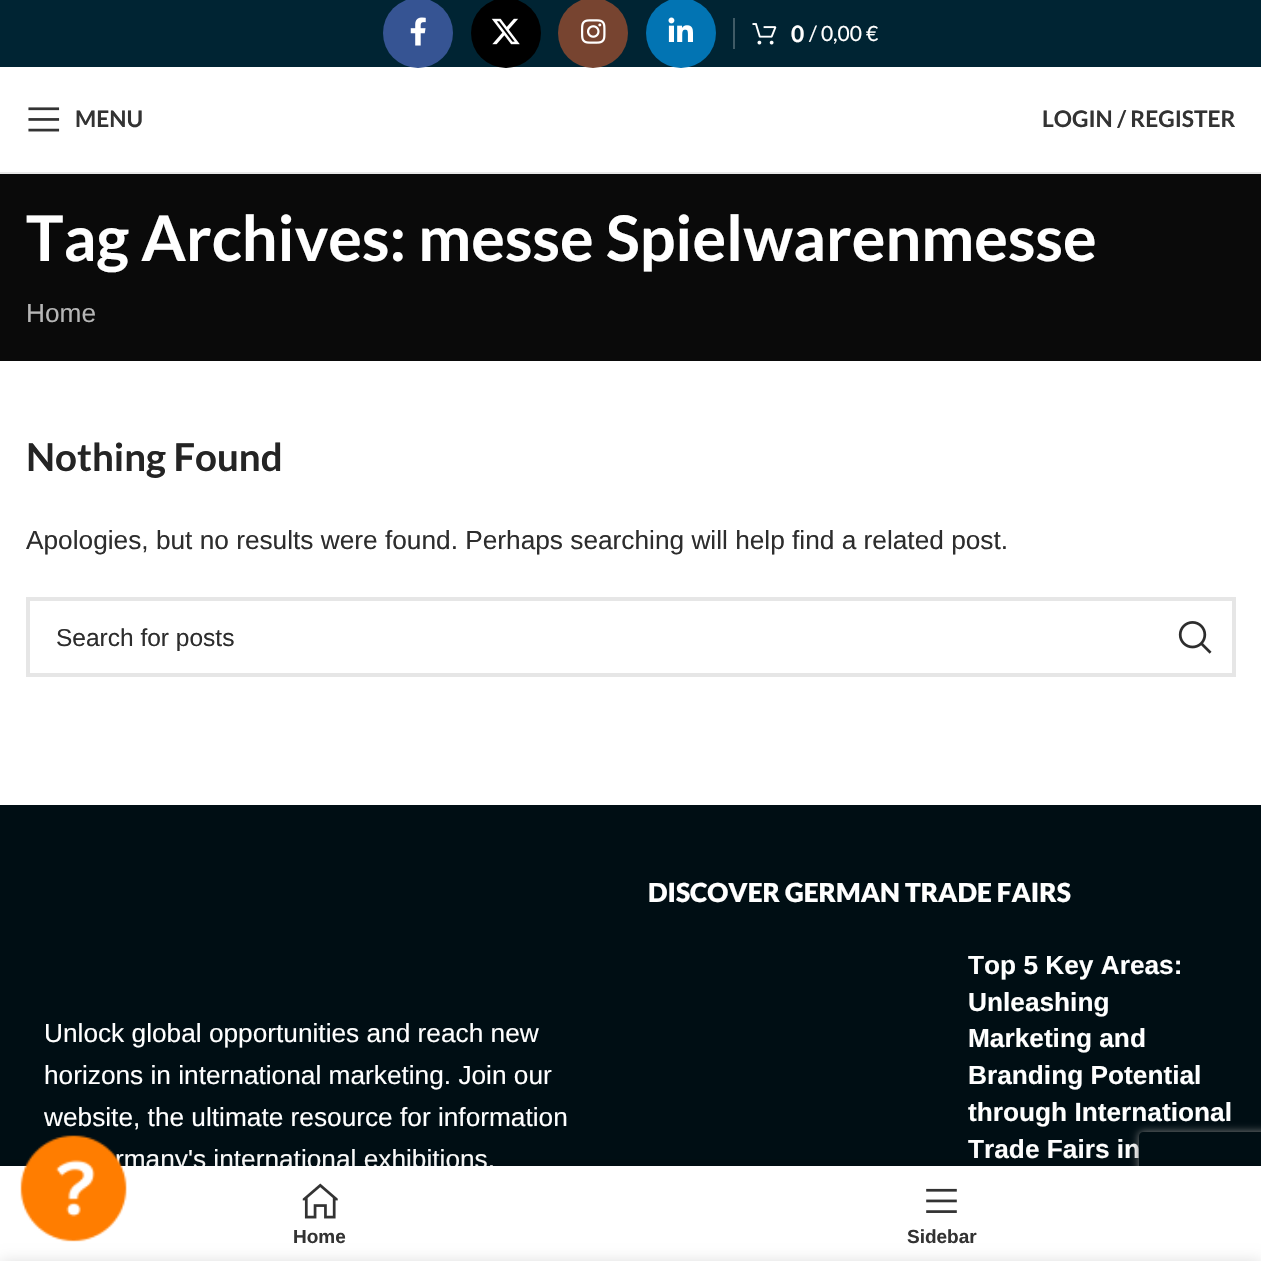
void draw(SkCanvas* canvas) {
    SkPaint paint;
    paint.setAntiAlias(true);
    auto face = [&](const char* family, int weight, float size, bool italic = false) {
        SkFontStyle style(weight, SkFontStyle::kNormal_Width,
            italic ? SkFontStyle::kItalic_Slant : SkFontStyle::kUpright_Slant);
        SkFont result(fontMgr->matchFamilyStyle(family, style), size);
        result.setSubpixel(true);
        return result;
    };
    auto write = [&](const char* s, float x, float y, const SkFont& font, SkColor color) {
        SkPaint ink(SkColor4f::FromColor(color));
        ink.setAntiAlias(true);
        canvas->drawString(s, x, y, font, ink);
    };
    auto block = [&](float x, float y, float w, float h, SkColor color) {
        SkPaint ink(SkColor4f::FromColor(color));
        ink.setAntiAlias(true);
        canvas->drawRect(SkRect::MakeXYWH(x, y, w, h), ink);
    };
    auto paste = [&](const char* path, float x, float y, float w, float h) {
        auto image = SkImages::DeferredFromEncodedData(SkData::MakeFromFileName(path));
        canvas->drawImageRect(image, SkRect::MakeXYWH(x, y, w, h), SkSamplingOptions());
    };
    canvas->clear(SK_ColorWHITE);
    block(0, 0, 1261, 67, SkColorSetRGB(0, 36, 51));
    paint.setColor(SkColorSetRGB(54, 84, 147));
    canvas->drawCircle(418, 33, 35, paint);
    paste("pic1.png", 410, 17, 16, 29);
    paint.setColor(SK_ColorBLACK);
    canvas->drawCircle(506, 33, 35, paint);
    paste("pic2.png", 491, 18, 29, 27);
    paint.setColor(SkColorSetRGB(119, 68, 48));
    canvas->drawCircle(593, 33, 35, paint);
    paste("pic3.png", 581, 19, 25, 25);
    paint.setColor(SkColorSetRGB(2, 116, 179));
    canvas->drawCircle(681, 33, 35, paint);
    paste("pic4.png", 668, 17, 25, 25);
    block(733, 18, 2, 31, SkColorSetRGB(64, 91, 102));
    paste("pic5.png", 752, 23, 25, 22);
    auto kFont1 = face("Lato", 700, 22.75f);
    write("0", 791, 42, kFont1, SK_ColorWHITE);
    auto kFont2 = face("Lato", 400, 21);
    write("/ 0,00 €", 809, 41, kFont2, SK_ColorWHITE);
    block(0, 172, 1261, 2, SkColorSetRGB(232, 232, 232));
    paste("pic6.png", 28, 107, 32, 25);
    write("MENU", 75, 127, kFont1, SkColorSetRGB(51, 51, 51));
    write("LOGIN / REGISTER", 1042, 127, kFont1, SkColorSetRGB(51, 51, 51));
    block(0, 174, 1261, 187, SkColorSetRGB(10, 10, 10));
    auto kFont3 = face("Lato", 700, 63);
    write("Tag Archives: messe Spielwarenmesse", 26, 261, kFont3, SK_ColorWHITE);
    auto kFont4 = face("Liberation Sans", 400, 26.25f);
    write("Home", 26, 322, kFont4, SkColorSetRGB(182, 182, 182));
    auto kFont5 = face("Lato", 700, 38.5f);
    write("Nothing Found", 26, 471, kFont5, SkColorSetRGB(36, 36, 36));
    write("Apologies, but no results were found. Perhaps searching will help find a related post.", 26, 549, kFont4, SkColorSetRGB(45, 45, 45));
    paint.setStyle(SkPaint::kStroke_Style);
    paint.setStrokeWidth(4);
    paint.setColor(SkColorSetRGB(230, 230, 230));
    canvas->drawRect(SkRect::MakeXYWH(28, 599, 1206, 76), paint);
    auto kFont6 = face("Liberation Sans", 400, 24.5f);
    write("Search for posts", 56, 646, kFont6, SkColorSetRGB(45, 45, 45));
    paste("pic7.png", 1178, 621, 34, 33);
    block(0, 805, 1261, 361, SkColorSetRGB(0, 14, 20));
    write("Unlock global opportunities and reach new", 44, 1042, kFont4, SK_ColorWHITE);
    write("horizons in international marketing. Join our", 44, 1084, kFont4, SK_ColorWHITE);
    write("website, the ultimate resource for information", 44, 1126, kFont4, SK_ColorWHITE);
    write("rmany's international exhibitions,", 115, 1168, kFont4, SK_ColorWHITE);
    auto kFont7 = face("Lato", 900, 26.25f);
    write("DISCOVER GERMAN TRADE FAIRS", 648, 902, kFont7, SK_ColorWHITE);
    auto kFont8 = face("Liberation Sans", 700, 26.25f);
    write("Top 5 Key Areas:", 968, 974, kFont8, SK_ColorWHITE);
    write("Unleashing", 968, 1011, kFont8, SK_ColorWHITE);
    write("Marketing and", 968, 1047, kFont8, SK_ColorWHITE);
    write("Branding Potential", 968, 1084, kFont8, SK_ColorWHITE);
    write("through International", 968, 1121, kFont8, SK_ColorWHITE);
    write("Trade Fairs in", 968, 1158, kFont8, SK_ColorWHITE);
    paint.setStyle(SkPaint::kFill_Style);
    paint.setColor(SkColorSetARGB(31, 0, 0, 0));
    paint.setMaskFilter(SkMaskFilter::MakeBlur(kNormal_SkBlurStyle, 8));
    canvas->drawRect(SkRect::MakeXYWH(0, 1166, 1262, 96), paint);
    paint.setMaskFilter(nullptr);
    canvas->save();
    canvas->clipPath(SkPathBuilder(SkPathFillType::kEvenOdd).moveTo(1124, 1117).lineTo(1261, 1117).lineTo(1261, 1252).lineTo(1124, 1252).close().moveTo(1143, 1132).lineTo(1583, 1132).cubicTo(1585, 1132, 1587, 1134, 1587, 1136).lineTo(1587, 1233).cubicTo(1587, 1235, 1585, 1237, 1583, 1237).lineTo(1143, 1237).cubicTo(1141, 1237, 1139, 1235, 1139, 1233).lineTo(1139, 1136).cubicTo(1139, 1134, 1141, 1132, 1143, 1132).close().detach(), true);
    paint.setColor(SkColorSetRGB(128, 128, 128));
    paint.setMaskFilter(SkMaskFilter::MakeBlur(kNormal_SkBlurStyle, 4.5f));
    canvas->drawRoundRect(SkRect::MakeXYWH(1139, 1132, 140, 105), 4, 4, paint);
    paint.setMaskFilter(nullptr);
    canvas->restore();
    block(0, 1166, 1261, 95, SK_ColorWHITE);
    paint.setColor(SkColorSetARGB(36, 0, 0, 0));
    paint.setMaskFilter(SkMaskFilter::MakeBlur(kNormal_SkBlurStyle, 8));
    canvas->drawRect(SkRect::MakeXYWH(0, 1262, 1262, 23), paint);
    paint.setMaskFilter(nullptr);
    paste("pic8.png", 20, 1135, 107, 107);
    paste("pic9.png", 302, 1183, 36, 36);
    auto kFont9 = face("Liberation Sans", 700, 19);
    write("Home", 293, 1243, kFont9, SkColorSetRGB(51, 51, 51));
    paste("pic10.png", 926, 1188, 31, 25);
    write("Sidebar", 907, 1243, kFont9, SkColorSetRGB(51, 51, 51));
}
